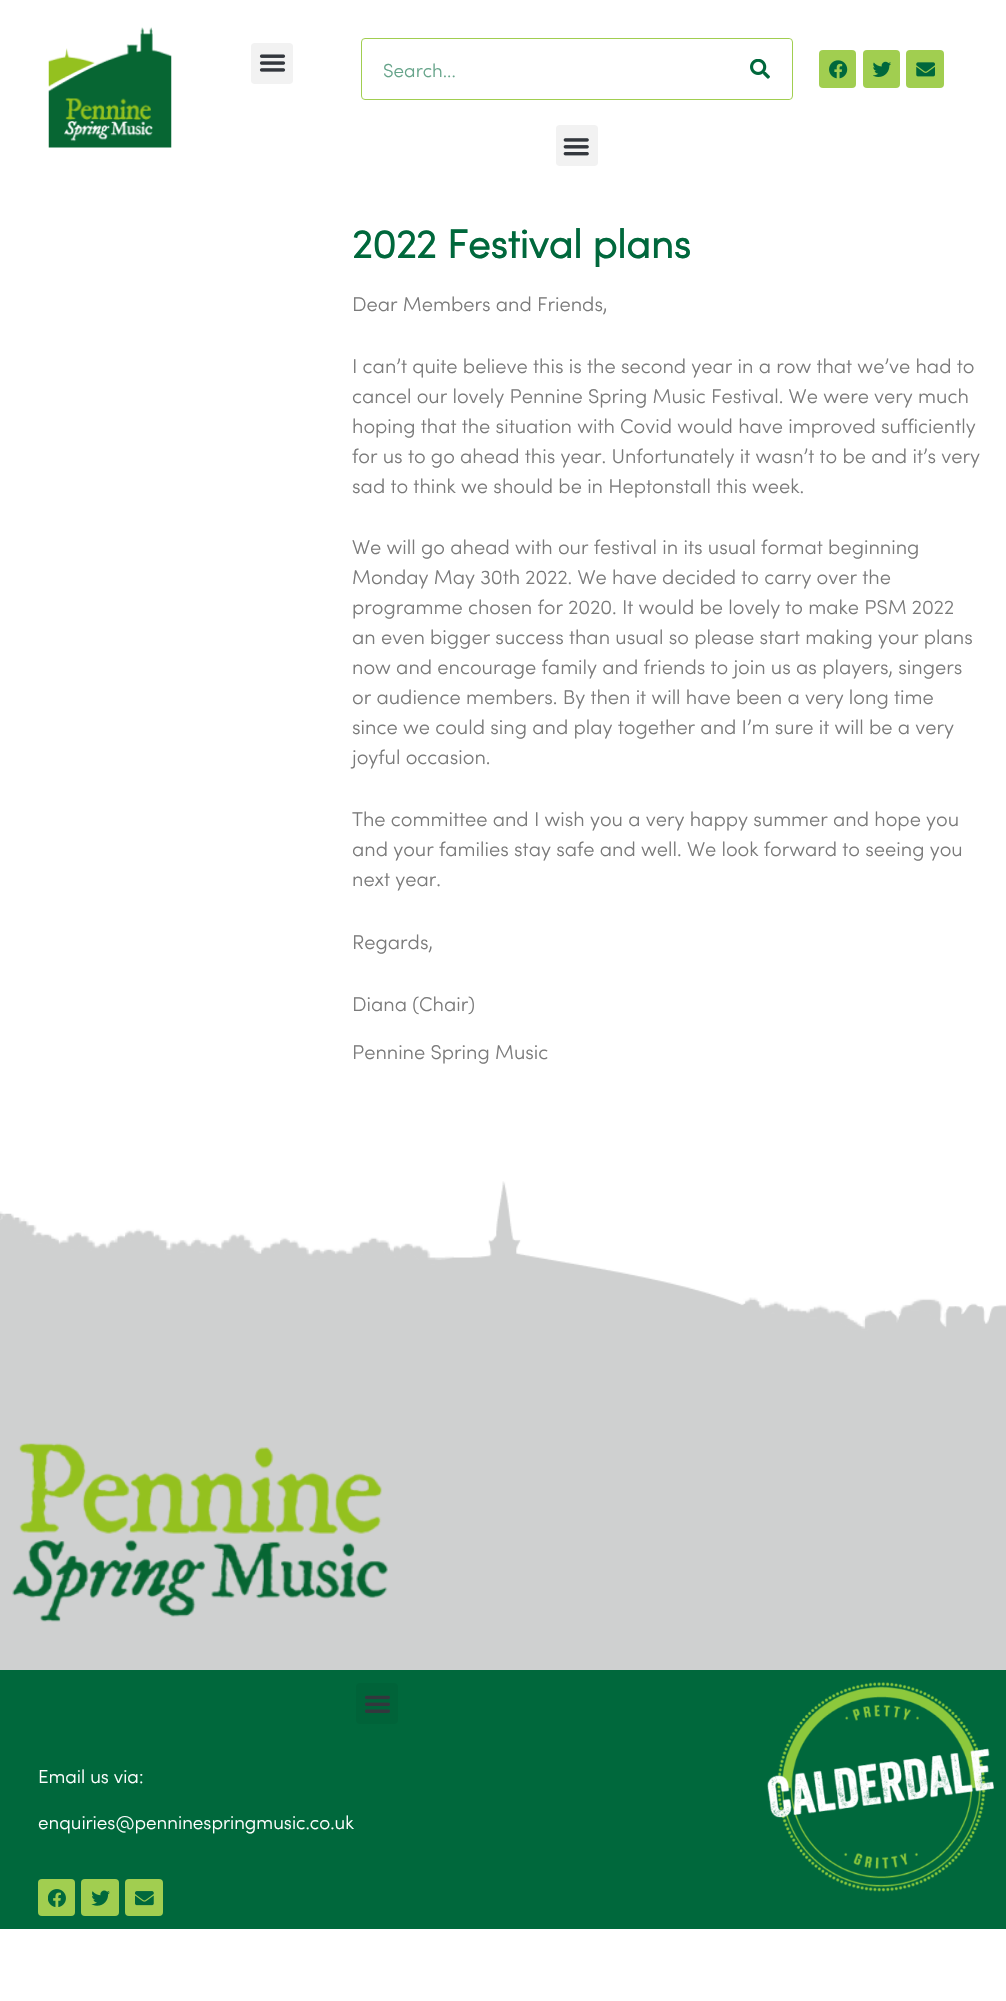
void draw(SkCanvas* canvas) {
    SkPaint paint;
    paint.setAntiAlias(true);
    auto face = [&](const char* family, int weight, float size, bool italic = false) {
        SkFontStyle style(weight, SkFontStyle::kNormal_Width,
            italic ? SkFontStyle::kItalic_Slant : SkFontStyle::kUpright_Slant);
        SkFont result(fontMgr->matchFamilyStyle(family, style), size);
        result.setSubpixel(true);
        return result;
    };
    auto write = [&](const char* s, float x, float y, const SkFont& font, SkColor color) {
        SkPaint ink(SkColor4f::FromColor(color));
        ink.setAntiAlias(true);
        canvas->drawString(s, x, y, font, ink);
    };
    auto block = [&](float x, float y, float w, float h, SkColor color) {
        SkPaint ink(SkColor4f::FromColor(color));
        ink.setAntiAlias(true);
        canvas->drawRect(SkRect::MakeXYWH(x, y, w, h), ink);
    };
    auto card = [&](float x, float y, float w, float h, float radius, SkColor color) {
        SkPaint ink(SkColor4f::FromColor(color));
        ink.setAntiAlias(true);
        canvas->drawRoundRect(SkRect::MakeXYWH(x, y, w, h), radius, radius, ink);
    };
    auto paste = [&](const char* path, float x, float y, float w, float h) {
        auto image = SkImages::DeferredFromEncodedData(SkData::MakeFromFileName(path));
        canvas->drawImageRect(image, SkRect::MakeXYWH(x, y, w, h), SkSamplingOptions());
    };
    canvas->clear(SK_ColorWHITE);
    paste("pic1.png", 48, 27, 124, 121);
    card(251, 43, 42, 41, 4, SkColorSetRGB(242, 242, 242));
    paste("pic2.png", 259, 54, 27, 18);
    paint.setStyle(SkPaint::kStroke_Style);
    paint.setStrokeWidth(1);
    paint.setColor(SkColorSetRGB(161, 206, 80));
    canvas->drawRoundRect(SkRect::MakeXYWH(361.5f, 38.5f, 431, 61), 3.5f, 3.5f, paint);
    auto kFont1 = face("Sofia", 300, 18.75f);
    write("Search...", 383, 77, kFont1, SkColorSetRGB(102, 164, 138));
    paint.setStyle(SkPaint::kFill_Style);
    paint.setColor(SK_ColorWHITE);
    canvas->drawPath(SkPathBuilder().moveTo(729, 39).lineTo(788.5f, 39).cubicTo(790, 39, 791, 40, 791, 41.5f).lineTo(791, 96.5f).cubicTo(791, 98, 790, 99, 788.5f, 99).lineTo(729, 99).close().detach(), paint);
    paste("pic3.png", 750, 59, 20, 20);
    card(819, 50, 37, 38, 4, SkColorSetRGB(161, 206, 80));
    paste("pic4.png", 829, 60, 19, 19);
    card(863, 50, 37, 38, 4, SkColorSetRGB(161, 206, 80));
    paste("pic5.png", 873, 61, 18, 16);
    card(906, 50, 38, 38, 4, SkColorSetRGB(161, 206, 80));
    paste("pic6.png", 916, 62, 19, 15);
    card(556, 125, 42, 41, 4, SkColorSetRGB(242, 242, 242));
    paste("pic7.png", 563, 138, 26, 18);
    auto kFont2 = face("Sofia", 700, 40);
    write("2022 Festival plans", 352, 258, kFont2, SkColorSetRGB(0, 104, 60));
    auto kFont3 = face("Sofia", 300, 20);
    write("Dear Members and Friends,", 352, 311, kFont3, SkColorSetRGB(122, 122, 122));
    write("I can’t quite believe this is the second year in a row that we’ve had to", 352, 373, kFont3, SkColorSetRGB(122, 122, 122));
    write("cancel our lovely Pennine Spring Music Festival. We were very much", 352, 403, kFont3, SkColorSetRGB(122, 122, 122));
    write("hoping that the situation with Covid would have improved sufficiently", 352, 433, kFont3, SkColorSetRGB(122, 122, 122));
    write("for us to go ahead this year. Unfortunately it wasn’t to be and it’s very", 352, 463, kFont3, SkColorSetRGB(122, 122, 122));
    write("sad to think we should be in Heptonstall this week.", 352, 493, kFont3, SkColorSetRGB(122, 122, 122));
    write("We will go ahead with our festival in its usual format beginning", 352, 554, kFont3, SkColorSetRGB(122, 122, 122));
    write("Monday May 30th 2022. We have decided to carry over the", 352, 584, kFont3, SkColorSetRGB(122, 122, 122));
    write("programme chosen for 2020. It would be lovely to make PSM 2022", 352, 614, kFont3, SkColorSetRGB(122, 122, 122));
    write("an even bigger success than usual so please start making your plans", 352, 644, kFont3, SkColorSetRGB(122, 122, 122));
    write("now and encourage family and friends to join us as players, singers", 352, 674, kFont3, SkColorSetRGB(122, 122, 122));
    write("or audience members. By then it will have been a very long time", 352, 704, kFont3, SkColorSetRGB(122, 122, 122));
    write("since we could sing and play together and I’m sure it will be a very", 352, 734, kFont3, SkColorSetRGB(122, 122, 122));
    write("joyful occasion.", 352, 764, kFont3, SkColorSetRGB(122, 122, 122));
    write("The committee and I wish you a very happy summer and hope you", 352, 826, kFont3, SkColorSetRGB(122, 122, 122));
    write("and your families stay safe and well. We look forward to seeing you", 352, 856, kFont3, SkColorSetRGB(122, 122, 122));
    write("next year.", 352, 886, kFont3, SkColorSetRGB(122, 122, 122));
    write("Regards,", 352, 949, kFont3, SkColorSetRGB(122, 122, 122));
    write("Diana (Chair)", 352, 1011, kFont3, SkColorSetRGB(122, 122, 122));
    write("Pennine Spring Music", 352, 1059, kFont3, SkColorSetRGB(122, 122, 122));
    paste("pic8.png", 0, 1181, 1006, 239);
    block(0, 1420, 1006, 250, SkColorSetRGB(207, 208, 208));
    paste("pic9.png", 12, 1443, 376, 179);
    block(0, 1670, 1006, 259, SkColorSetRGB(0, 104, 60));
    card(356, 1683, 42, 41, 4, SkColorSetRGB(0, 99, 57));
    paste("pic10.png", 365, 1695, 25, 18);
    write("Email us via:", 38, 1783, kFont1, SK_ColorWHITE);
    write("enquiries@penninespringmusic.co.uk", 38, 1829, kFont1, SK_ColorWHITE);
    card(38, 1879, 37, 37, 4, SkColorSetRGB(161, 206, 80));
    paste("pic11.png", 48, 1889, 18, 18);
    card(81, 1879, 38, 37, 4, SkColorSetRGB(161, 206, 80));
    paste("pic12.png", 91, 1890, 19, 16);
    card(125, 1879, 38, 37, 4, SkColorSetRGB(161, 206, 80));
    paste("pic13.png", 135, 1891, 19, 15);
    paste("pic14.png", 767, 1682, 227, 210);
}
